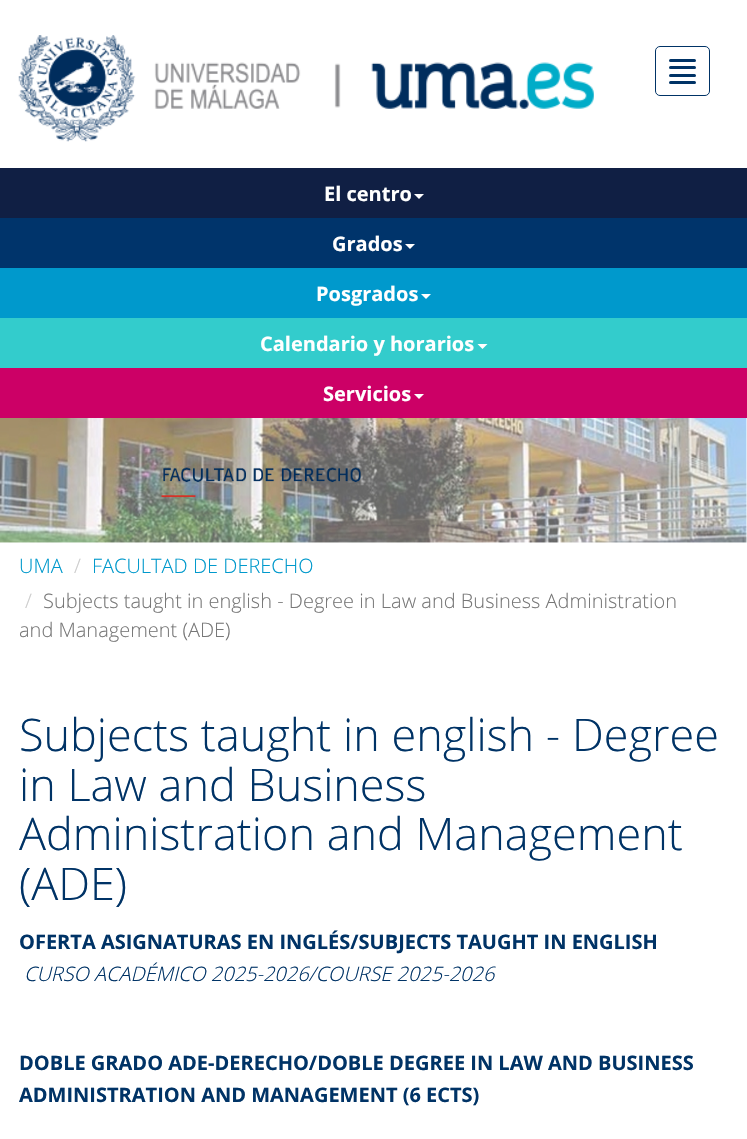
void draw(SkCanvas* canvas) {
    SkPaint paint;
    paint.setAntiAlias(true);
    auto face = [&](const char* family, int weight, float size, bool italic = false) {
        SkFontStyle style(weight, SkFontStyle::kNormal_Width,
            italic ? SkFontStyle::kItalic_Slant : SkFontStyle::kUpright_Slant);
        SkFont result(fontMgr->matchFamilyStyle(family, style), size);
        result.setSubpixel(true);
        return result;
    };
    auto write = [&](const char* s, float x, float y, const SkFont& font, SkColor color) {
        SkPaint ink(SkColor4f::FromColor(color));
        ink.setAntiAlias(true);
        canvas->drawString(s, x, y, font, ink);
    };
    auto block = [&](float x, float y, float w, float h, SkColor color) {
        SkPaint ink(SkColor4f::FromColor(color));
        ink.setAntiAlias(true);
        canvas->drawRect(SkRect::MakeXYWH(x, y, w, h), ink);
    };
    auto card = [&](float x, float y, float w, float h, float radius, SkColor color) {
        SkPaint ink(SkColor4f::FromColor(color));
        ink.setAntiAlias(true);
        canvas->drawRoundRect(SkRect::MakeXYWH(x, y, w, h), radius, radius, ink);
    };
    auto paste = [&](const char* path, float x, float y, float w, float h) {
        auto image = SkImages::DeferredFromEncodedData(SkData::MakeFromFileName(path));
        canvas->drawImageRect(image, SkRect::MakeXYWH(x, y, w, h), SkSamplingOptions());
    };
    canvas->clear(SK_ColorWHITE);
    paste("pic1.png", 18, 35, 576, 107);
    paint.setStyle(SkPaint::kStroke_Style);
    paint.setStrokeWidth(1);
    paint.setColor(SkColorSetRGB(0, 51, 102));
    canvas->drawRoundRect(SkRect::MakeXYWH(655.5f, 46.5f, 54, 49), 4.5f, 4.5f, paint);
    card(669, 59, 27, 3, 1.5f, SkColorSetRGB(0, 51, 102));
    card(669, 66, 27, 3, 1.5f, SkColorSetRGB(0, 51, 102));
    card(669, 74, 27, 3, 1.5f, SkColorSetRGB(0, 51, 102));
    card(669, 81, 27, 3, 1.5f, SkColorSetRGB(0, 51, 102));
    block(0, 168, 747, 50, SkColorSetRGB(16, 31, 68));
    auto kFont1 = face("Open Sans", 700, 20);
    write("El centro", 324, 201, kFont1, SK_ColorWHITE);
    paint.setStyle(SkPaint::kFill_Style);
    paint.setColor(SK_ColorWHITE);
    canvas->drawPath(SkPathBuilder().moveTo(414, 194).lineTo(424, 194).lineTo(419, 199).close().detach(), paint);
    block(0, 218, 747, 50, SkColorSetRGB(0, 52, 107));
    write("Grados", 332, 251, kFont1, SK_ColorWHITE);
    canvas->drawPath(SkPathBuilder().moveTo(405, 244).lineTo(415, 244).lineTo(410, 249).close().detach(), paint);
    block(0, 268, 747, 50, SkColorSetRGB(0, 153, 204));
    write("Posgrados", 316, 301, kFont1, SK_ColorWHITE);
    canvas->drawPath(SkPathBuilder().moveTo(421, 294).lineTo(431, 294).lineTo(426, 299).close().detach(), paint);
    block(0, 318, 747, 50, SkColorSetRGB(51, 204, 204));
    write("Calendario y horarios", 260, 351, kFont1, SK_ColorWHITE);
    canvas->drawPath(SkPathBuilder().moveTo(477.5f, 344).lineTo(487.5f, 344).lineTo(482.5f, 349).close().detach(), paint);
    block(0, 368, 747, 50, SkColorSetRGB(204, 0, 102));
    write("Servicios", 323, 401, kFont1, SK_ColorWHITE);
    canvas->drawPath(SkPathBuilder().moveTo(414, 394).lineTo(424, 394).lineTo(419, 399).close().detach(), paint);
    paste("pic2.png", 0, 418, 747, 125);
    auto kFont2 = face("Open Sans", 300, 20);
    write("UMA", 19, 573, kFont2, SkColorSetRGB(0, 153, 204));
    write("/", 74, 573, kFont2, SkColorSetRGB(204, 204, 204));
    write("FACULTAD DE DERECHO", 92, 573, kFont2, SkColorSetRGB(0, 153, 204));
    write("/", 25, 608, kFont2, SkColorSetRGB(204, 204, 204));
    write("Subjects taught in english - Degree in Law and Business Administration", 43, 608, kFont2, SkColorSetRGB(119, 119, 119));
    write("and Management (ADE)", 19, 637, kFont2, SkColorSetRGB(119, 119, 119));
    auto kFont3 = face("Open Sans", 300, 45);
    write("Subjects taught in english - Degree", 19, 751, kFont3, SkColorSetRGB(0, 51, 102));
    write("in Law and Business", 19, 801, kFont3, SkColorSetRGB(0, 51, 102));
    write("Administration and Management", 19, 850, kFont3, SkColorSetRGB(0, 51, 102));
    write("(ADE)", 19, 900, kFont3, SkColorSetRGB(0, 51, 102));
    write("OFERTA ASIGNATURAS EN INGLÉS/SUBJECTS TAUGHT IN ENGLISH", 19, 949, kFont1, SkColorSetRGB(0, 51, 102));
    auto kFont4 = face("Open Sans", 300, 20, true);
    write("CURSO ACADÉMICO 2025-2026/COURSE 2025-2026", 24, 981, kFont4, SkColorSetRGB(0, 51, 102));
    write("DOBLE GRADO ADE-DERECHO/DOBLE DEGREE IN LAW AND BUSINESS", 19, 1070, kFont1, SkColorSetRGB(0, 51, 102));
    write("ADMINISTRATION AND MANAGEMENT (6 ECTS)", 19, 1102, kFont1, SkColorSetRGB(0, 51, 102));
}
